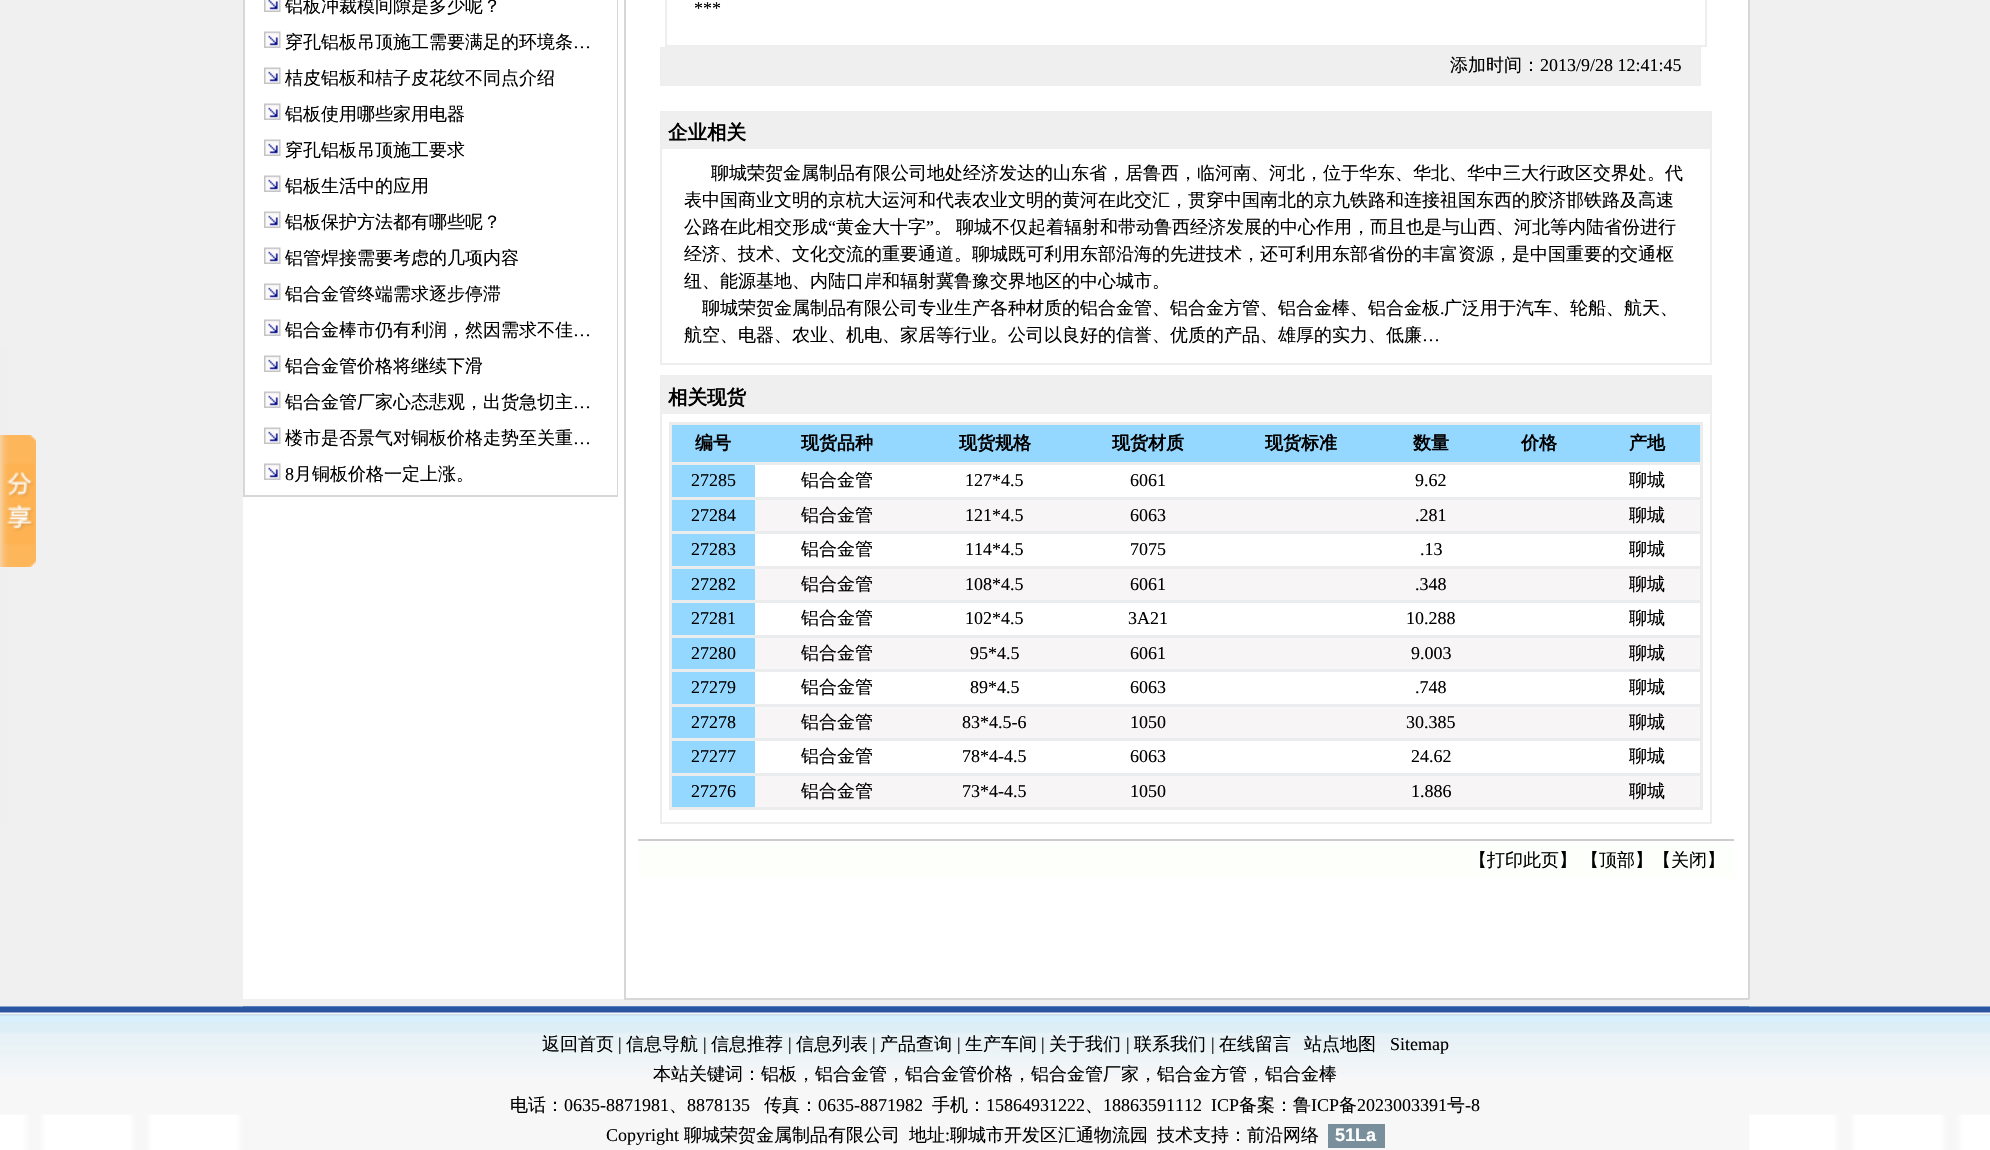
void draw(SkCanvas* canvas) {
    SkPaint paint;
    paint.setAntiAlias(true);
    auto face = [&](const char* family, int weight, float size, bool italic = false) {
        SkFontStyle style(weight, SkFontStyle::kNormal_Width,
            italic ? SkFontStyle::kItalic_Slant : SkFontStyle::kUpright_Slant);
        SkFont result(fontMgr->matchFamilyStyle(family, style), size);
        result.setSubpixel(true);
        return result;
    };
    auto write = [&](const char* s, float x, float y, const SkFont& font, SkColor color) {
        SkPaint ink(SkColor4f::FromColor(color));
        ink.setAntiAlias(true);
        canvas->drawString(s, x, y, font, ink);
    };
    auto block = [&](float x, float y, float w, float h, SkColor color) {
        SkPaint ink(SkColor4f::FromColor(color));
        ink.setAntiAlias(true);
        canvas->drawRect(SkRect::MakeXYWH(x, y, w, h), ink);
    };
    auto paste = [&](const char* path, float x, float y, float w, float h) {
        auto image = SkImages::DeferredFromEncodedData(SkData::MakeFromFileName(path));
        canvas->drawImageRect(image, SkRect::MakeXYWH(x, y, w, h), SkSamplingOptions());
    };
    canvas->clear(SkColorSetRGB(240, 240, 240));
    paste("pic1.png", 0, 435, 36, 132);
    canvas->save();
    canvas->clipRect(SkRect::MakeXYWH(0, 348, 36, 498));
    paint.setColor(SkColorSetRGB(238, 238, 238));
    paint.setMaskFilter(SkMaskFilter::MakeBlur(kNormal_SkBlurStyle, 5));
    canvas->drawRect(SkRect::MakeXYWH(-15, 348, 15, 471), paint);
    paint.setMaskFilter(nullptr);
    canvas->restore();
    block(243, 0, 1505, 999, SK_ColorWHITE);
    paint.setStyle(SkPaint::kStroke_Style);
    paint.setStrokeWidth(2);
    paint.setColor(SkColorSetRGB(215, 215, 215));
    canvas->drawRect(SkRect::MakeXYWH(244, -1, 373, 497), paint);
    block(616, 0, 1, 495, SK_ColorWHITE);
    paste("pic2.png", 264, 0, 17, 12);
    auto kFont1 = face("WenQuanYi Zen Hei", 500, 18);
    write("铝板冲裁模间隙是多少呢？", 285, 12, kFont1, SK_ColorBLACK);
    paste("pic3.png", 264, 31, 17, 17);
    write("穿孔铝板吊顶施工需要满足的环境条", 285, 48, kFont1, SK_ColorBLACK);
    auto kFont2 = face("Liberation Serif", 400, 18);
    write("…", 573, 48, kFont2, SK_ColorBLACK);
    paste("pic3.png", 264, 67, 17, 17);
    write("桔皮铝板和桔子皮花纹不同点介绍", 285, 84, kFont1, SK_ColorBLACK);
    paste("pic3.png", 264, 103, 17, 17);
    write("铝板使用哪些家用电器", 285, 120, kFont1, SK_ColorBLACK);
    paste("pic3.png", 264, 139, 17, 17);
    write("穿孔铝板吊顶施工要求", 285, 156, kFont1, SK_ColorBLACK);
    paste("pic3.png", 264, 175, 17, 17);
    write("铝板生活中的应用", 285, 192, kFont1, SK_ColorBLACK);
    paste("pic3.png", 264, 211, 17, 17);
    write("铝板保护方法都有哪些呢？", 285, 228, kFont1, SK_ColorBLACK);
    paste("pic3.png", 264, 247, 17, 17);
    write("铝管焊接需要考虑的几项内容", 285, 264, kFont1, SK_ColorBLACK);
    paste("pic3.png", 264, 283, 17, 17);
    write("铝合金管终端需求逐步停滞", 285, 300, kFont1, SK_ColorBLACK);
    paste("pic3.png", 264, 319, 17, 17);
    write("铝合金棒市仍有利润，然因需求不佳", 285, 336, kFont1, SK_ColorBLACK);
    write("…", 573, 336, kFont2, SK_ColorBLACK);
    paste("pic3.png", 264, 355, 17, 17);
    write("铝合金管价格将继续下滑", 285, 372, kFont1, SK_ColorBLACK);
    paste("pic3.png", 264, 391, 17, 17);
    write("铝合金管厂家心态悲观，出货急切主", 285, 408, kFont1, SK_ColorBLACK);
    write("…", 573, 408, kFont2, SK_ColorBLACK);
    paste("pic3.png", 264, 427, 17, 17);
    write("楼市是否景气对铜板价格走势至关重", 285, 444, kFont1, SK_ColorBLACK);
    write("…", 573, 444, kFont2, SK_ColorBLACK);
    paste("pic3.png", 264, 463, 17, 17);
    write("8", 285, 480, kFont2, SK_ColorBLACK);
    write("月铜板价格一定上涨。", 294, 480, kFont1, SK_ColorBLACK);
    block(1748, 0, 2, 999, SkColorSetRGB(215, 215, 215));
    block(624, 998, 1125, 2, SkColorSetRGB(215, 215, 215));
    block(624, 0, 2, 999, SkColorSetRGB(215, 215, 215));
    paint.setColor(SkColorSetRGB(238, 238, 238));
    canvas->drawRect(SkRect::MakeXYWH(666, -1, 1040, 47), paint);
    write("***", 694, 14, kFont2, SK_ColorBLACK);
    canvas->drawRect(SkRect::MakeXYWH(661, 48, 1039, 37), paint);
    block(662, 49, 1037, 35, SkColorSetRGB(239, 239, 239));
    write("添加时间：", 1450, 71, kFont1, SK_ColorBLACK);
    write("2013/9/28 12:41:45", 1540, 71, kFont2, SK_ColorBLACK);
    canvas->drawRect(SkRect::MakeXYWH(661, 112, 1050, 252), paint);
    block(662, 113, 1048, 36, SkColorSetRGB(239, 239, 239));
    auto kFont3 = face("WenQuanYi Zen Hei", 700, 19.5f);
    write("企业相关", 668, 139, kFont3, SK_ColorBLACK);
    write("聊城荣贺金属制品有限公司地处经济发达的山东省，居鲁西，临河南、河北，位于华东、华北、华中三大行政区交界处。代", 711, 179, kFont1, SK_ColorBLACK);
    write("表中国商业文明的京杭大运河和代表农业文明的黄河在此交汇，贯穿中国南北的京九铁路和连接祖国东西的胶济邯铁路及高速", 684, 206, kFont1, SK_ColorBLACK);
    write("公路在此相交形成", 684, 233, kFont1, SK_ColorBLACK);
    write("“", 828, 233, kFont2, SK_ColorBLACK);
    write("黄金大十字", 836, 233, kFont1, SK_ColorBLACK);
    write("”", 926, 233, kFont2, SK_ColorBLACK);
    write("聊城不仅起着辐射和带动鲁西经济发展的中心作用，而且也是与山西、河北等内陆省份进行", 956, 233, kFont1, SK_ColorBLACK);
    write("。", 934, 233, kFont1, SK_ColorBLACK);
    write("经济、技术、文化交流的重要通道。聊城既可利用东部沿海的先进技术，还可利用东部省份的丰富资源，是中国重要的交通枢", 684, 260, kFont1, SK_ColorBLACK);
    write("纽、能源基地、内陆口岸和辐射冀鲁豫交界地区的中心城市。", 684, 287, kFont1, SK_ColorBLACK);
    write("聊城荣贺金属制品有限公司专业生产各种材质的铝合金管、铝合金方管、铝合金棒、铝合金板", 702, 314, kFont1, SK_ColorBLACK);
    write(".", 1440, 314, kFont2, SK_ColorBLACK);
    write("广泛用于汽车、轮船、航天、", 1444, 314, kFont1, SK_ColorBLACK);
    write("航空、电器、农业、机电、家居等行业。公司以良好的信誉、优质的产品、雄厚的实力、低廉", 684, 341, kFont1, SK_ColorBLACK);
    write("…", 1422, 341, kFont2, SK_ColorBLACK);
    canvas->drawRect(SkRect::MakeXYWH(661, 376, 1050, 447), paint);
    block(662, 377, 1048, 37, SkColorSetRGB(239, 239, 239));
    write("相关现货", 668, 404, kFont3, SK_ColorBLACK);
    block(669, 422, 1034, 388, SkColorSetRGB(235, 236, 237));
    block(672, 425, 1028, 37, SkColorSetRGB(148, 216, 255));
    auto kFont4 = face("WenQuanYi Zen Hei", 700, 18);
    write("编号", 695, 449, kFont4, SK_ColorBLACK);
    write("现货品种", 801, 449, kFont4, SK_ColorBLACK);
    write("现货规格", 959, 449, kFont4, SK_ColorBLACK);
    write("现货材质", 1112, 449, kFont4, SK_ColorBLACK);
    write("现货标准", 1265, 449, kFont4, SK_ColorBLACK);
    write("数量", 1413, 449, kFont4, SK_ColorBLACK);
    write("价格", 1521, 449, kFont4, SK_ColorBLACK);
    write("产地", 1629, 449, kFont4, SK_ColorBLACK);
    block(755, 465, 945, 32, SK_ColorWHITE);
    block(672, 465, 83, 32, SkColorSetRGB(148, 216, 255));
    write("27285", 691, 486, kFont2, SK_ColorBLACK);
    write("铝合金管", 801, 486, kFont1, SK_ColorBLACK);
    write("127*4.5", 965, 486, kFont2, SK_ColorBLACK);
    write("6061", 1130, 486, kFont2, SK_ColorBLACK);
    write("9.62", 1415, 486, kFont2, SK_ColorBLACK);
    write("聊城", 1629, 486, kFont1, SK_ColorBLACK);
    block(755, 500, 945, 31, SkColorSetRGB(247, 245, 245));
    block(672, 500, 83, 31, SkColorSetRGB(148, 216, 255));
    write("27284", 691, 521, kFont2, SK_ColorBLACK);
    write("铝合金管", 801, 521, kFont1, SK_ColorBLACK);
    write("121*4.5", 965, 521, kFont2, SK_ColorBLACK);
    write("6063", 1130, 521, kFont2, SK_ColorBLACK);
    write(".281", 1415, 521, kFont2, SK_ColorBLACK);
    write("聊城", 1629, 521, kFont1, SK_ColorBLACK);
    block(755, 534, 945, 32, SK_ColorWHITE);
    block(672, 534, 83, 32, SkColorSetRGB(148, 216, 255));
    write("27283", 691, 555, kFont2, SK_ColorBLACK);
    write("铝合金管", 801, 555, kFont1, SK_ColorBLACK);
    write("114*4.5", 965, 555, kFont2, SK_ColorBLACK);
    write("7075", 1130, 555, kFont2, SK_ColorBLACK);
    write(".13", 1420, 555, kFont2, SK_ColorBLACK);
    write("聊城", 1629, 555, kFont1, SK_ColorBLACK);
    block(755, 569, 945, 31, SkColorSetRGB(247, 245, 245));
    block(672, 569, 83, 31, SkColorSetRGB(148, 216, 255));
    write("27282", 691, 590, kFont2, SK_ColorBLACK);
    write("铝合金管", 801, 590, kFont1, SK_ColorBLACK);
    write("108*4.5", 965, 590, kFont2, SK_ColorBLACK);
    write("6061", 1130, 590, kFont2, SK_ColorBLACK);
    write(".348", 1415, 590, kFont2, SK_ColorBLACK);
    write("聊城", 1629, 590, kFont1, SK_ColorBLACK);
    block(755, 603, 945, 32, SK_ColorWHITE);
    block(672, 603, 83, 32, SkColorSetRGB(148, 216, 255));
    write("27281", 691, 624, kFont2, SK_ColorBLACK);
    write("铝合金管", 801, 624, kFont1, SK_ColorBLACK);
    write("102*4.5", 965, 624, kFont2, SK_ColorBLACK);
    write("3A21", 1128, 624, kFont2, SK_ColorBLACK);
    write("10.288", 1406, 624, kFont2, SK_ColorBLACK);
    write("聊城", 1629, 624, kFont1, SK_ColorBLACK);
    block(755, 638, 945, 31, SkColorSetRGB(247, 245, 245));
    block(672, 638, 83, 31, SkColorSetRGB(148, 216, 255));
    write("27280", 691, 659, kFont2, SK_ColorBLACK);
    write("铝合金管", 801, 659, kFont1, SK_ColorBLACK);
    write("95*4.5", 970, 659, kFont2, SK_ColorBLACK);
    write("6061", 1130, 659, kFont2, SK_ColorBLACK);
    write("9.003", 1411, 659, kFont2, SK_ColorBLACK);
    write("聊城", 1629, 659, kFont1, SK_ColorBLACK);
    block(755, 672, 945, 32, SK_ColorWHITE);
    block(672, 672, 83, 32, SkColorSetRGB(148, 216, 255));
    write("27279", 691, 693, kFont2, SK_ColorBLACK);
    write("铝合金管", 801, 693, kFont1, SK_ColorBLACK);
    write("89*4.5", 970, 693, kFont2, SK_ColorBLACK);
    write("6063", 1130, 693, kFont2, SK_ColorBLACK);
    write(".748", 1415, 693, kFont2, SK_ColorBLACK);
    write("聊城", 1629, 693, kFont1, SK_ColorBLACK);
    block(755, 707, 945, 31, SkColorSetRGB(247, 245, 245));
    block(672, 707, 83, 31, SkColorSetRGB(148, 216, 255));
    write("27278", 691, 728, kFont2, SK_ColorBLACK);
    write("铝合金管", 801, 728, kFont1, SK_ColorBLACK);
    write("83*4.5-6", 962, 728, kFont2, SK_ColorBLACK);
    write("1050", 1130, 728, kFont2, SK_ColorBLACK);
    write("30.385", 1406, 728, kFont2, SK_ColorBLACK);
    write("聊城", 1629, 728, kFont1, SK_ColorBLACK);
    block(755, 741, 945, 32, SK_ColorWHITE);
    block(672, 741, 83, 32, SkColorSetRGB(148, 216, 255));
    write("27277", 691, 762, kFont2, SK_ColorBLACK);
    write("铝合金管", 801, 762, kFont1, SK_ColorBLACK);
    write("78*4-4.5", 962, 762, kFont2, SK_ColorBLACK);
    write("6063", 1130, 762, kFont2, SK_ColorBLACK);
    write("24.62", 1411, 762, kFont2, SK_ColorBLACK);
    write("聊城", 1629, 762, kFont1, SK_ColorBLACK);
    block(755, 776, 945, 31, SkColorSetRGB(247, 245, 245));
    block(672, 776, 83, 31, SkColorSetRGB(148, 216, 255));
    write("27276", 691, 797, kFont2, SK_ColorBLACK);
    write("铝合金管", 801, 797, kFont1, SK_ColorBLACK);
    write("73*4-4.5", 962, 797, kFont2, SK_ColorBLACK);
    write("1050", 1130, 797, kFont2, SK_ColorBLACK);
    write("1.886", 1411, 797, kFont2, SK_ColorBLACK);
    write("聊城", 1629, 797, kFont1, SK_ColorBLACK);
    block(638, 839, 1096, 2, SkColorSetRGB(204, 204, 204));
    block(638, 845, 1096, 33, SkColorSetRGB(253, 255, 251));
    write("【打印此页】", 1469, 866, kFont1, SK_ColorBLACK);
    write("【顶部】【关闭】", 1581, 866, kFont1, SK_ColorBLACK);
    paste("pic4.png", 0, 1006, 1990, 144);
    paste("pic5.png", 243, 1006, 1506, 144);
    write("返回首页", 542, 1050, kFont1, SK_ColorBLACK);
    write("|", 618, 1050, kFont2, SK_ColorBLACK);
    write("信息导航", 626, 1050, kFont1, SK_ColorBLACK);
    write("|", 703, 1050, kFont2, SK_ColorBLACK);
    write("信息推荐", 711, 1050, kFont1, SK_ColorBLACK);
    write("|", 788, 1050, kFont2, SK_ColorBLACK);
    write("信息列表", 796, 1050, kFont1, SK_ColorBLACK);
    write("|", 872, 1050, kFont2, SK_ColorBLACK);
    write("产品查询", 880, 1050, kFont1, SK_ColorBLACK);
    write("|", 957, 1050, kFont2, SK_ColorBLACK);
    write("生产车间", 965, 1050, kFont1, SK_ColorBLACK);
    write("|", 1041, 1050, kFont2, SK_ColorBLACK);
    write("关于我们", 1049, 1050, kFont1, SK_ColorBLACK);
    write("|", 1126, 1050, kFont2, SK_ColorBLACK);
    write("联系我们", 1134, 1050, kFont1, SK_ColorBLACK);
    write("|", 1211, 1050, kFont2, SK_ColorBLACK);
    write("在线留言", 1219, 1050, kFont1, SK_ColorBLACK);
    write("站点地图", 1304, 1050, kFont1, SK_ColorBLACK);
    write("Sitemap", 1390, 1050, kFont2, SK_ColorBLACK);
    write("本站关键词：铝板，铝合金管，铝合金管价格，铝合金管厂家，铝合金方管，铝合金棒", 653, 1080, kFont1, SK_ColorBLACK);
    write("电话：", 510, 1111, kFont1, SK_ColorBLACK);
    write("0635-8871981", 564, 1111, kFont2, SK_ColorBLACK);
    write("、", 669, 1111, kFont1, SK_ColorBLACK);
    write("8878135", 687, 1111, kFont2, SK_ColorBLACK);
    write("传真：", 764, 1111, kFont1, SK_ColorBLACK);
    write("0635-8871982", 818, 1111, kFont2, SK_ColorBLACK);
    write("手机：", 932, 1111, kFont1, SK_ColorBLACK);
    write("15864931222", 986, 1111, kFont2, SK_ColorBLACK);
    write("、", 1085, 1111, kFont1, SK_ColorBLACK);
    write("18863591112  ICP", 1103, 1111, kFont2, SK_ColorBLACK);
    write("备案：鲁", 1239, 1111, kFont1, SK_ColorBLACK);
    write("ICP", 1311, 1111, kFont2, SK_ColorBLACK);
    write("备", 1339, 1111, kFont1, SK_ColorBLACK);
    write("2023003391", 1357, 1111, kFont2, SK_ColorBLACK);
    write("号", 1447, 1111, kFont1, SK_ColorBLACK);
    write("-8", 1465, 1111, kFont2, SK_ColorBLACK);
    write("Copyright", 606, 1141, kFont2, SK_ColorBLACK);
    write("聊城荣贺金属制品有限公司", 684, 1141, kFont1, SK_ColorBLACK);
    write("地址", 909, 1141, kFont1, SK_ColorBLACK);
    write(":", 945, 1141, kFont2, SK_ColorBLACK);
    write("聊城市开发区汇通物流园", 950, 1141, kFont1, SK_ColorBLACK);
    write("技术支持：前沿网络", 1157, 1141, kFont1, SK_ColorBLACK);
    block(1328, 1124, 57, 24, SkColorSetRGB(121, 144, 156));
    auto kFont5 = face("Liberation Sans", 700, 18);
    write("51La", 1335, 1141, kFont5, SK_ColorWHITE);
}
